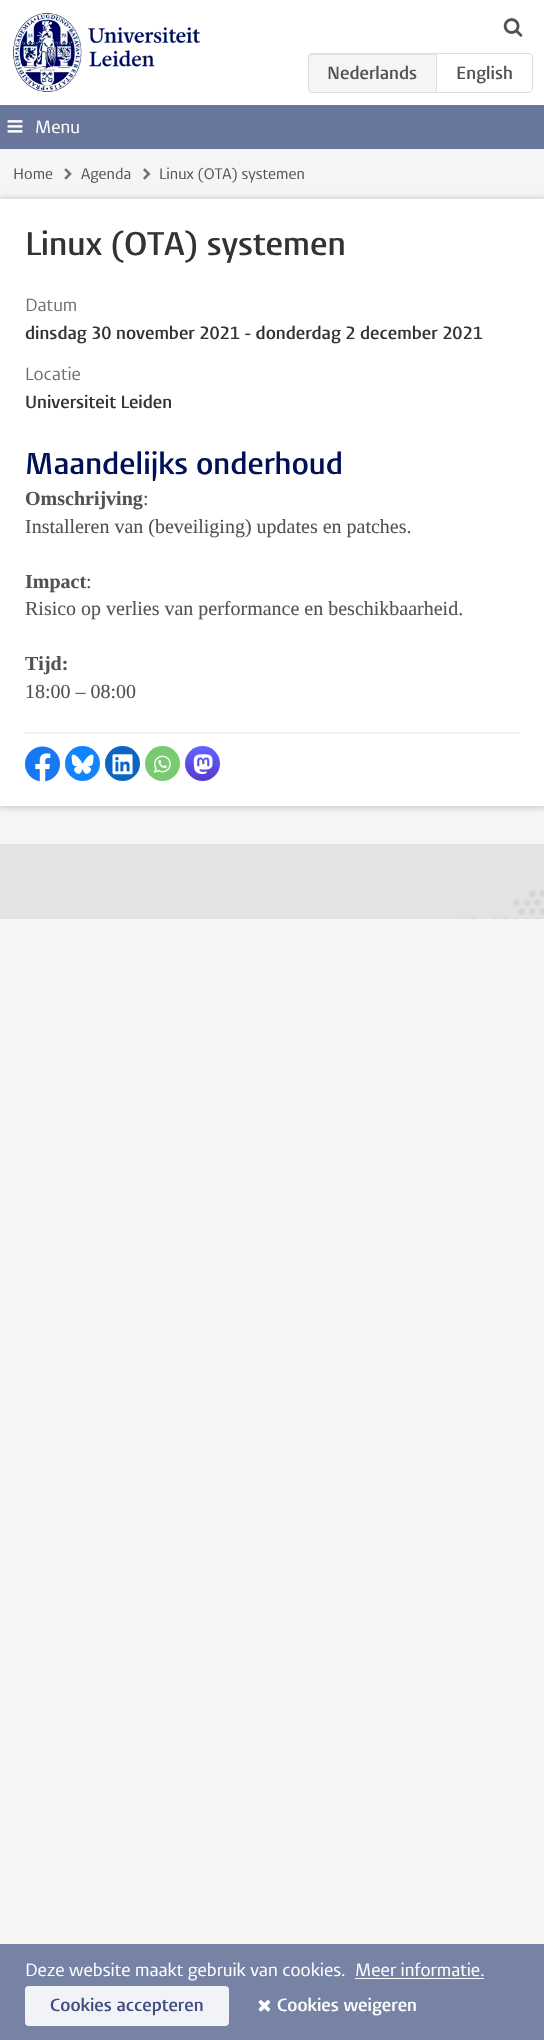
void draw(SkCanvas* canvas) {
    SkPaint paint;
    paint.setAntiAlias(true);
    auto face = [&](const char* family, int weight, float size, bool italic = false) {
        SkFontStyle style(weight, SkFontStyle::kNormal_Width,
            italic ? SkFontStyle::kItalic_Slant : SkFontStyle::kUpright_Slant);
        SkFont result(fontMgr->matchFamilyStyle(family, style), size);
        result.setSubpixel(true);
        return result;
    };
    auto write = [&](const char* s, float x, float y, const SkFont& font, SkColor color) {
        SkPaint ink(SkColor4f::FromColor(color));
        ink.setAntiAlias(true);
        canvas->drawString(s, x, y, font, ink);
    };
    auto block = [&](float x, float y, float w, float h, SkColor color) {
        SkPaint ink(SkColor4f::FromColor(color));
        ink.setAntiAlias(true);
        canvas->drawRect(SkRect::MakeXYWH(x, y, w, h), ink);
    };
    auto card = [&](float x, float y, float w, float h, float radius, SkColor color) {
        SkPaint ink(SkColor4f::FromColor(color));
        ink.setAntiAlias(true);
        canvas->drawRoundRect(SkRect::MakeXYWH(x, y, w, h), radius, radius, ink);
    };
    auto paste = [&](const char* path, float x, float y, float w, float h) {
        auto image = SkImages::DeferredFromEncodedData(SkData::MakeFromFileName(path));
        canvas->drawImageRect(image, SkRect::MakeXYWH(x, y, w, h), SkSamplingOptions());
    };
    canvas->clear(SkColorSetRGB(245, 245, 245));
    block(0, 0, 544, 105, SK_ColorWHITE);
    paste("pic1.png", 13, 13, 187, 79);
    paste("pic2.png", 503, 18, 20, 19);
    paint.setColor(SkColorSetRGB(245, 245, 245));
    canvas->drawPath(SkPathBuilder().moveTo(312, 53).lineTo(438, 53).lineTo(438, 93).lineTo(312, 93).cubicTo(310, 93, 308, 91, 308, 89).lineTo(308, 57).cubicTo(308, 55, 310, 53, 312, 53).close().detach(), paint);
    paint.setColor(SkColorSetRGB(225, 225, 225));
    canvas->drawPath(SkPathBuilder().moveTo(311, 55).lineTo(436, 55).lineTo(436, 54).lineTo(312, 54).cubicTo(310, 54, 309, 55, 309, 56).lineTo(309, 58).cubicTo(309, 56, 310, 55, 311, 55).close().detach(), paint);
    paint.setStyle(SkPaint::kStroke_Style);
    paint.setStrokeWidth(1);
    paint.setColor(SkColorSetRGB(221, 221, 221));
    canvas->drawPath(SkPathBuilder().moveTo(312, 53.5f).lineTo(437.5f, 53.5f).lineTo(437.5f, 92.5f).lineTo(312, 92.5f).cubicTo(310, 92.5f, 308.5f, 91, 308.5f, 89).lineTo(308.5f, 57).cubicTo(308.5f, 55, 310, 53.5f, 312, 53.5f).close().detach(), paint);
    auto kFont1 = face("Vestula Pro", 600, 17.5f);
    write("Nederlands", 327, 79, kFont1, SkColorSetRGB(83, 83, 83));
    paint.setStyle(SkPaint::kFill_Style);
    paint.setColor(SK_ColorWHITE);
    canvas->drawPath(SkPathBuilder().moveTo(436.5f, 53.5f).lineTo(529, 53.5f).cubicTo(531, 53.5f, 532.5f, 55, 532.5f, 57).lineTo(532.5f, 89).cubicTo(532.5f, 91, 531, 92.5f, 529, 92.5f).lineTo(436.5f, 92.5f).close().detach(), paint);
    paint.setStyle(SkPaint::kStroke_Style);
    paint.setColor(SkColorSetRGB(221, 221, 221));
    canvas->drawPath(SkPathBuilder().moveTo(436.5f, 53.5f).lineTo(529, 53.5f).cubicTo(531, 53.5f, 532.5f, 55, 532.5f, 57).lineTo(532.5f, 89).cubicTo(532.5f, 91, 531, 92.5f, 529, 92.5f).lineTo(436.5f, 92.5f).close().detach(), paint);
    write("English", 456, 79, kFont1, SkColorSetRGB(83, 83, 83));
    block(0, 105, 544, 44, SkColorSetRGB(104, 118, 156));
    paste("pic3.png", 7, 120, 16, 13);
    auto kFont2 = face("Vestula Pro", 400, 17.5f);
    write("Menu", 35, 133, kFont2, SK_ColorWHITE);
    auto kFont3 = face("Vestula Pro", 400, 15);
    write("Home", 13, 179, kFont3, SkColorSetRGB(83, 83, 83));
    paste("pic4.png", 64, 168, 8, 12);
    write("Agenda", 81, 179, kFont3, SkColorSetRGB(83, 83, 83));
    paste("pic5.png", 143, 168, 8, 12);
    write("Linux (OTA) systemen", 159, 179, kFont3, SkColorSetRGB(83, 83, 83));
    paint.setStyle(SkPaint::kFill_Style);
    paint.setColor(SkColorSetARGB(77, 120, 110, 100));
    paint.setMaskFilter(SkMaskFilter::MakeBlur(kNormal_SkBlurStyle, 3));
    canvas->drawRect(SkRect::MakeXYWH(-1, 198, 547, 610), paint);
    paint.setMaskFilter(nullptr);
    block(0, 199, 544, 607, SK_ColorWHITE);
    auto kFont4 = face("Vestula Pro", 600, 32.5f);
    write("Linux (OTA) systemen", 25, 255, kFont4, SkColorSetRGB(51, 51, 51));
    write("Datum", 25, 311, kFont2, SkColorSetRGB(112, 112, 112));
    write("dinsdag 30 november 2021 - donderdag 2 december 2021", 25, 339, kFont1, SkColorSetRGB(51, 51, 51));
    write("Locatie", 25, 380, kFont2, SkColorSetRGB(112, 112, 112));
    write("Universiteit Leiden", 25, 408, kFont1, SkColorSetRGB(51, 51, 51));
    auto kFont5 = face("Vestula Pro", 600, 30);
    write("Maandelijks onderhoud", 25, 474, kFont5, SkColorSetRGB(0, 17, 88));
    auto kFont6 = face("Liberation Serif", 700, 20);
    write("Omschrijving", 25, 505, kFont6, SkColorSetRGB(83, 83, 83));
    auto kFont7 = face("Liberation Serif", 400, 20);
    write(":", 143, 505, kFont7, SkColorSetRGB(83, 83, 83));
    write("Installeren van (beveiliging) updates en patches.", 25, 533, kFont7, SkColorSetRGB(83, 83, 83));
    write("Impact", 25, 588, kFont6, SkColorSetRGB(83, 83, 83));
    write(":", 86, 588, kFont7, SkColorSetRGB(83, 83, 83));
    write("Risico op verlies van performance en beschikbaarheid.", 25, 615, kFont7, SkColorSetRGB(83, 83, 83));
    write("Tijd:", 25, 670, kFont6, SkColorSetRGB(83, 83, 83));
    write("18:00 – 08:00", 25, 698, kFont7, SkColorSetRGB(83, 83, 83));
    paint.setStyle(SkPaint::kStroke_Style);
    paint.setStrokeWidth(1.2f);
    paint.setColor(SkColorSetRGB(204, 204, 204));
    paint.setPathEffect(SkDashPathEffect::Make({{1.25f, 1.25f}}, 0));
    canvas->drawPath(SkPathBuilder().moveTo(25, 733).lineTo(520, 733).detach(), paint);
    paint.setPathEffect(nullptr);
    paste("pic6.png", 25, 746, 35, 36);
    paint.setStyle(SkPaint::kFill_Style);
    paint.setColor(SkColorSetRGB(17, 133, 254));
    canvas->drawCircle(82.5f, 763.5f, 17.5f, paint);
    paste("pic7.png", 71, 754, 23, 20);
    paint.setColor(SkColorSetRGB(10, 102, 194));
    canvas->drawCircle(122.5f, 763.5f, 17.5f, paint);
    paste("pic8.png", 112, 754, 21, 21);
    paint.setColor(SkColorSetRGB(121, 202, 112));
    canvas->drawCircle(162.5f, 763.5f, 17.5f, paint);
    paste("pic9.png", 153, 755, 18, 18);
    {
        const SkColor colors[] = {SkColorSetRGB(99, 100, 255), SkColorSetRGB(86, 58, 204)};
        const float stops[] = {0, 1};
        const SkPoint ends[] = {{203, 746}, {203, 781}};
        paint.setShader(SkGradientShader::MakeLinear(ends, colors, stops, 2, SkTileMode::kClamp));
        paint.setAlpha(255);
    }
    canvas->drawCircle(202.5f, 763.5f, 17.5f, paint);
    paste("pic10.png", 193, 754, 20, 20);
    block(0, 844, 544, 75, SkColorSetRGB(227, 227, 227));
    paste("pic11.png", 461, 890, 83, 29);
    block(0, 1944, 544, 96, SkColorSetRGB(118, 131, 165));
    write("Deze website maakt gebruik van cookies.", 25, 1976, kFont2, SK_ColorWHITE);
    write("Meer informatie.", 355, 1976, kFont2, SK_ColorWHITE);
    block(355, 1978, 129, 1, SK_ColorWHITE);
    card(25, 1986, 204, 40, 4, SkColorSetRGB(241, 243, 246));
    write("Cookies accepteren", 50, 2011, kFont1, SkColorSetRGB(64, 77, 130));
    paste("pic12.png", 258, 2000, 13, 12);
    write("Cookies weigeren", 277, 2011, kFont1, SK_ColorWHITE);
}
